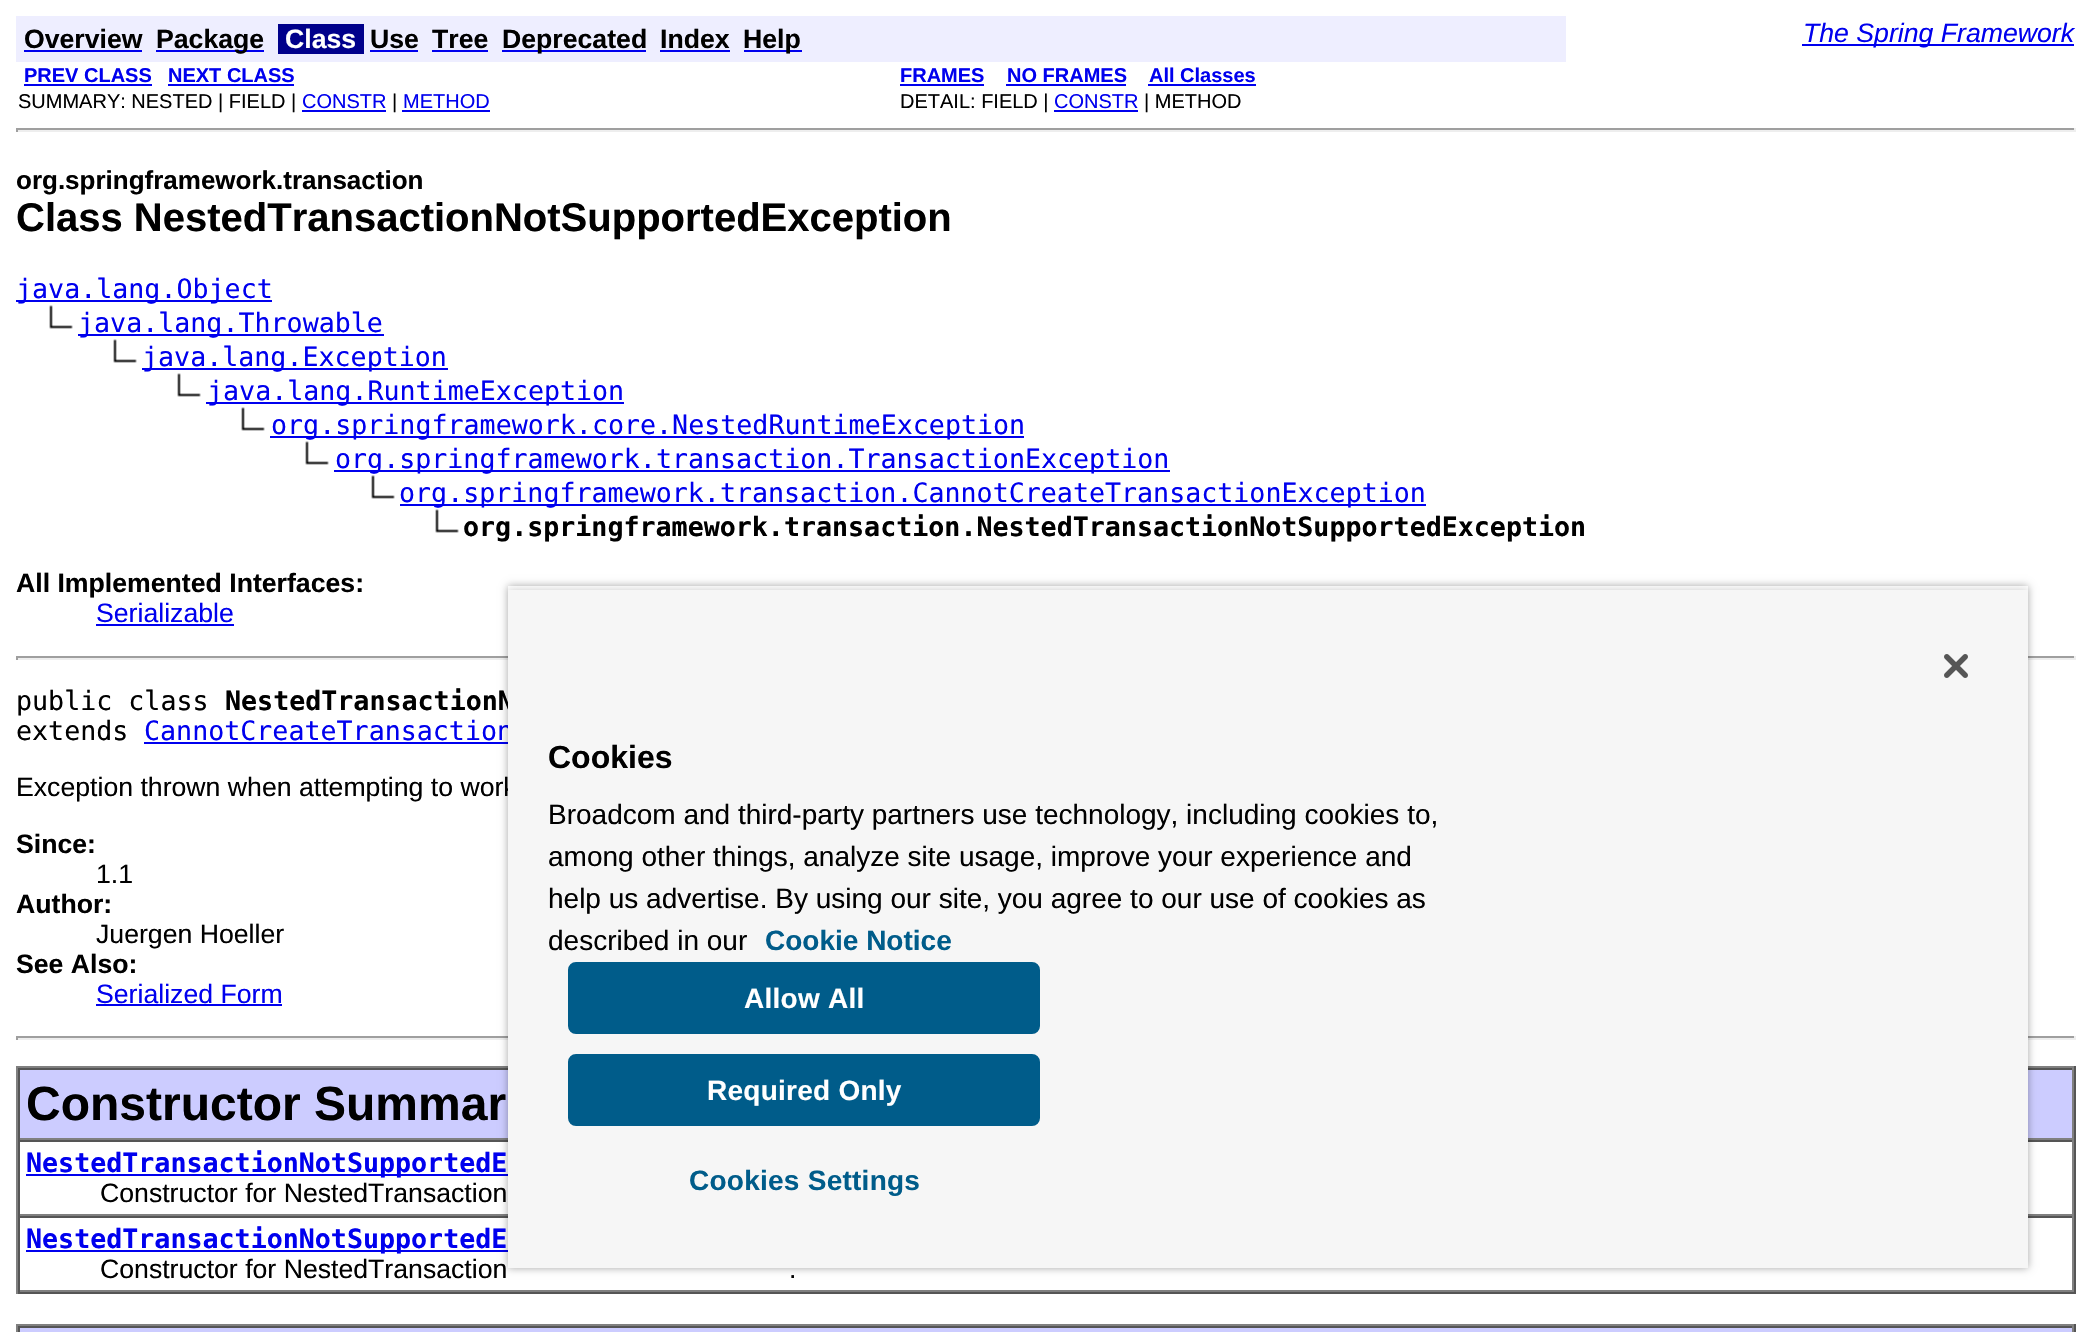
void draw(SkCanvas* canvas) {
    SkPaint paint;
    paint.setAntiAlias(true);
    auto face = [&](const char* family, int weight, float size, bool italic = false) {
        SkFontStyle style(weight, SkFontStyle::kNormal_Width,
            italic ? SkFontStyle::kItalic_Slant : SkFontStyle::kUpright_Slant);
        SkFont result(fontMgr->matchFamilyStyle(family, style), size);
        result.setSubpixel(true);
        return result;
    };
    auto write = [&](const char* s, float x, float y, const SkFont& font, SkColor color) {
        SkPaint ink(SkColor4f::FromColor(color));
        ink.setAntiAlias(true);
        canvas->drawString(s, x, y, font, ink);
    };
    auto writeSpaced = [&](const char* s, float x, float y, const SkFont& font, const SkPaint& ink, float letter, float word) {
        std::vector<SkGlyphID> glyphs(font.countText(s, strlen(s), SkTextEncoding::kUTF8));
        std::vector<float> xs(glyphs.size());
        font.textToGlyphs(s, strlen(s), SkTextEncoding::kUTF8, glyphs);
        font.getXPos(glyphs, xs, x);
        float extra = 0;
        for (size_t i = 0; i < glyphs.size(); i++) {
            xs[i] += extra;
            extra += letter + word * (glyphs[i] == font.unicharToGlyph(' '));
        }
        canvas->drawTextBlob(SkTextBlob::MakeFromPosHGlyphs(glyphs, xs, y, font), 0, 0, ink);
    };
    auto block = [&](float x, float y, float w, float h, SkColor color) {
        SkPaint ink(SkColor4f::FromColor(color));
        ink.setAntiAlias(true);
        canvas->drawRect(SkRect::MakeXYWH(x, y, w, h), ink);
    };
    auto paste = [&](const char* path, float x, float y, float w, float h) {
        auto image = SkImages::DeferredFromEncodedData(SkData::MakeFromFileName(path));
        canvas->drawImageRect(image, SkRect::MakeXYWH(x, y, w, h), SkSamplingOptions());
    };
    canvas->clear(SK_ColorWHITE);
    block(16, 16, 1550, 46, SkColorSetRGB(238, 238, 255));
    auto kFont1 = face("Liberation Sans", 700, 26.65f);
    write("Overview", 24, 48, kFont1, SK_ColorBLACK);
    block(24, 50, 118, 2, SkColorSetRGB(0, 0, 238));
    block(156, 50, 108, 2, SkColorSetRGB(0, 0, 238));
    write("Package", 156, 48, kFont1, SK_ColorBLACK);
    block(278, 24, 86, 30, SkColorSetRGB(0, 0, 139));
    write("Class", 285, 48, kFont1, SK_ColorWHITE);
    write("Use", 370, 48, kFont1, SK_ColorBLACK);
    block(370, 50, 48, 2, SkColorSetRGB(0, 0, 238));
    write("Tree", 432, 48, kFont1, SK_ColorBLACK);
    block(432, 50, 56, 2, SkColorSetRGB(0, 0, 238));
    block(502, 50, 144, 2, SkColorSetRGB(0, 0, 238));
    write("Deprecated", 502, 48, kFont1, SK_ColorBLACK);
    write("Index", 660, 48, kFont1, SK_ColorBLACK);
    block(660, 50, 70, 2, SkColorSetRGB(0, 0, 238));
    block(744, 50, 58, 2, SkColorSetRGB(0, 0, 238));
    write("Help", 743, 48, kFont1, SK_ColorBLACK);
    block(1802, 44, 272, 2, SkColorSetRGB(0, 0, 238));
    auto kFont2 = face("Liberation Sans", 400, 26.65f, true);
    write("The Spring Framework", 1803, 42, kFont2, SkColorSetRGB(0, 0, 238));
    auto kFont3 = face("Liberation Sans", 700, 20);
    write("PREV CLASS", 24, 82, kFont3, SkColorSetRGB(0, 0, 238));
    block(24, 84, 128, 2, SkColorSetRGB(0, 0, 238));
    write("NEXT CLASS", 168, 82, kFont3, SkColorSetRGB(0, 0, 238));
    block(168, 84, 126, 2, SkColorSetRGB(0, 0, 238));
    write("FRAMES", 900, 82, kFont3, SkColorSetRGB(0, 0, 238));
    block(900, 84, 84, 2, SkColorSetRGB(0, 0, 238));
    write("NO FRAMES", 1007, 82, kFont3, SkColorSetRGB(0, 0, 238));
    block(1006, 84, 120, 2, SkColorSetRGB(0, 0, 238));
    write("All Classes", 1149, 82, kFont3, SkColorSetRGB(0, 0, 238));
    block(1148, 84, 108, 2, SkColorSetRGB(0, 0, 238));
    auto kFont4 = face("Liberation Sans", 400, 20);
    write("SUMMARY: NESTED | FIELD |", 18, 108, kFont4, SK_ColorBLACK);
    write("CONSTR", 302, 108, kFont4, SkColorSetRGB(0, 0, 238));
    block(302, 110, 84, 2, SkColorSetRGB(0, 0, 238));
    write("|", 392, 108, kFont4, SK_ColorBLACK);
    write("METHOD", 403, 108, kFont4, SkColorSetRGB(0, 0, 238));
    block(402, 110, 88, 2, SkColorSetRGB(0, 0, 238));
    write("DETAIL: FIELD |", 900, 108, kFont4, SK_ColorBLACK);
    write("CONSTR", 1054, 108, kFont4, SkColorSetRGB(0, 0, 238));
    block(1054, 110, 84, 2, SkColorSetRGB(0, 0, 238));
    write("| METHOD", 1144, 108, kFont4, SK_ColorBLACK);
    block(16, 128, 2060, 2, SkColorSetRGB(159, 159, 159));
    block(2074, 128, 2, 4, SkColorSetRGB(238, 238, 238));
    block(16, 130, 2060, 2, SkColorSetRGB(238, 238, 238));
    block(16, 128, 2, 4, SkColorSetRGB(159, 159, 159));
    auto kFont5 = face("Liberation Sans", 700, 26);
    write("org.springframework.transaction", 16, 189, kFont5, SK_ColorBLACK);
    auto kFont6 = face("Liberation Sans", 700, 40);
    write("Class NestedTransactionNotSupportedException", 16, 231, kFont6, SK_ColorBLACK);
    block(16, 300, 256, 2, SkColorSetRGB(0, 0, 238));
    auto kFont7 = face("DejaVu Sans Mono", 400, 26.65f);
    write("java.lang.Object", 16, 298, kFont7, SkColorSetRGB(0, 0, 238));
    paste("pic1.png", 49, 305, 24, 24);
    block(78, 334, 306, 2, SkColorSetRGB(0, 0, 238));
    write("java.lang.Throwable", 78, 332, kFont7, SkColorSetRGB(0, 0, 238));
    paste("pic1.png", 113, 339, 24, 24);
    block(142, 368, 306, 2, SkColorSetRGB(0, 0, 238));
    write("java.lang.Exception", 142, 366, kFont7, SkColorSetRGB(0, 0, 238));
    paste("pic1.png", 177, 373, 24, 24);
    block(206, 402, 418, 2, SkColorSetRGB(0, 0, 238));
    write("java.lang.RuntimeException", 207, 400, kFont7, SkColorSetRGB(0, 0, 238));
    paste("pic1.png", 241, 407, 24, 24);
    block(270, 436, 754, 2, SkColorSetRGB(0, 0, 238));
    write("org.springframework.core.NestedRuntimeException", 271, 434, kFont7, SkColorSetRGB(0, 0, 238));
    paste("pic1.png", 305, 441, 24, 24);
    block(334, 470, 836, 2, SkColorSetRGB(0, 0, 238));
    write("org.springframework.transaction.TransactionException", 335, 468, kFont7, SkColorSetRGB(0, 0, 238));
    paste("pic1.png", 371, 475, 24, 24);
    block(400, 504, 1026, 2, SkColorSetRGB(0, 0, 238));
    write("org.springframework.transaction.CannotCreateTransactionException", 399, 502, kFont7, SkColorSetRGB(0, 0, 238));
    paste("pic1.png", 435, 509, 24, 24);
    auto kFont8 = face("DejaVu Sans Mono", 700, 26.65f);
    write("org.springframework.transaction.NestedTransactionNotSupportedException", 463, 536, kFont8, SK_ColorBLACK);
    write("All Implemented Interfaces:", 16, 592, kFont1, SK_ColorBLACK);
    auto kFont9 = face("Liberation Sans", 400, 26.65f);
    write("Serializable", 96, 622, kFont9, SkColorSetRGB(0, 0, 238));
    block(96, 624, 138, 2, SkColorSetRGB(0, 0, 238));
    block(16, 656, 2060, 2, SkColorSetRGB(159, 159, 159));
    block(2074, 656, 2, 4, SkColorSetRGB(238, 238, 238));
    block(16, 658, 2060, 2, SkColorSetRGB(238, 238, 238));
    block(16, 656, 2, 4, SkColorSetRGB(159, 159, 159));
    write("public class", 16, 710, kFont7, SK_ColorBLACK);
    write("NestedTransactionN", 225, 710, kFont8, SK_ColorBLACK);
    write("extends", 16, 740, kFont7, SK_ColorBLACK);
    write("CannotCreateTransaction", 144, 740, kFont7, SkColorSetRGB(0, 0, 238));
    block(144, 742, 364, 2, SkColorSetRGB(0, 0, 238));
    write("Exception thrown when attempting to work", 16, 796, kFont9, SK_ColorBLACK);
    block(16, 1036, 2060, 2, SkColorSetRGB(159, 159, 159));
    block(2074, 1036, 2, 4, SkColorSetRGB(238, 238, 238));
    block(16, 1038, 2060, 2, SkColorSetRGB(238, 238, 238));
    block(16, 1066, 2060, 2, SkColorSetRGB(128, 128, 128));
    block(20, 1070, 2052, 68, SkColorSetRGB(204, 204, 255));
    block(18, 1068, 2056, 2, SkColorSetRGB(85, 85, 85));
    block(2072, 1068, 2, 72, SkColorSetRGB(128, 128, 128));
    block(18, 1138, 2056, 2, SkColorSetRGB(128, 128, 128));
    block(18, 1140, 2056, 2, SkColorSetRGB(85, 85, 85));
    block(2072, 1140, 2, 76, SkColorSetRGB(128, 128, 128));
    block(18, 1214, 2056, 2, SkColorSetRGB(128, 128, 128));
    block(26, 1174, 482, 2, SkColorSetRGB(0, 0, 238));
    block(18, 1216, 2056, 2, SkColorSetRGB(85, 85, 85));
    block(26, 1250, 482, 2, SkColorSetRGB(0, 0, 238));
    canvas->save();
    canvas->clipPath(SkPathBuilder(SkPathFillType::kEvenOdd).moveTo(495, 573).lineTo(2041, 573).lineTo(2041, 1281).lineTo(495, 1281).close().moveTo(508, 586).lineTo(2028, 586).lineTo(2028, 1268).lineTo(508, 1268).close().detach(), true);
    paint.setColor(SkColorSetARGB(89, 0, 0, 0));
    paint.setMaskFilter(SkMaskFilter::MakeBlur(kNormal_SkBlurStyle, 4));
    canvas->drawRect(SkRect::MakeXYWH(508, 586, 1520, 682), paint);
    paint.setMaskFilter(nullptr);
    canvas->restore();
    canvas->save();
    canvas->clipRect(SkRect::MakeXYWH(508, 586, 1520, 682));
    paint.setColor(SkColorSetARGB(51, 0, 0, 0));
    paint.setMaskFilter(SkMaskFilter::MakeBlur(kNormal_SkBlurStyle, 4));
    canvas->drawRect(SkRect::MakeXYWH(508, 590, 1520, 678), paint);
    paint.setMaskFilter(nullptr);
    canvas->restore();
    block(508, 590, 1520, 678, SkColorSetRGB(246, 246, 246));
    paste("pic2.png", 1944, 654, 24, 24);
    auto kFont10 = face("Liberation Sans", 700, 32);
    write("Cookies", 548, 768, kFont10, SK_ColorBLACK);
    auto kFont11 = face("Liberation Sans", 400, 28);
    write("Broadcom and third-party partners use technology, including cookies to,", 548, 824, kFont11, SK_ColorBLACK);
    write("among other things, analyze site usage, improve your experience and", 548, 866, kFont11, SK_ColorBLACK);
    write("help us advertise. By using our site, you agree to our use of cookies as", 548, 908, kFont11, SK_ColorBLACK);
    write("described in our", 548, 950, kFont11, SK_ColorBLACK);
    auto kFont12 = face("Liberation Sans", 700, 28);
    write("Cookie Notice", 765, 950, kFont12, SkColorSetRGB(0, 92, 138));
    paint.setColor(SkColorSetRGB(0, 92, 138));
    canvas->drawRoundRect(SkRect::MakeXYWH(569, 963, 470, 70), 7, 7, paint);
    paint.setStyle(SkPaint::kStroke_Style);
    paint.setStrokeWidth(2);
    canvas->drawRoundRect(SkRect::MakeXYWH(569, 963, 470, 70), 7, 7, paint);
    paint.setStyle(SkPaint::kFill_Style);
    paint.setColor(SK_ColorWHITE);
    writeSpaced("Allow All", 744, 1008, kFont12, paint, 0.25f, 0);
    paint.setColor(SkColorSetRGB(0, 92, 138));
    canvas->drawRoundRect(SkRect::MakeXYWH(569, 1055, 470, 70), 7, 7, paint);
    paint.setStyle(SkPaint::kStroke_Style);
    canvas->drawRoundRect(SkRect::MakeXYWH(569, 1055, 470, 70), 7, 7, paint);
    paint.setStyle(SkPaint::kFill_Style);
    paint.setColor(SK_ColorWHITE);
    writeSpaced("Required Only", 707, 1100, kFont12, paint, 0.25f, 0);
    paint.setColor(SkColorSetRGB(0, 92, 138));
    writeSpaced("Cookies Settings", 689, 1190, kFont12, paint, 0.25f, 0);
    write("Since:", 16, 853, kFont1, SK_ColorBLACK);
    write("1.1", 96, 883, kFont9, SK_ColorBLACK);
    write("Author:", 16, 913, kFont1, SK_ColorBLACK);
    write("Juergen Hoeller", 96, 943, kFont9, SK_ColorBLACK);
    write("See Also:", 16, 973, kFont1, SK_ColorBLACK);
    write("Serialized Form", 96, 1003, kFont9, SkColorSetRGB(0, 0, 238));
    block(96, 1004, 186, 2, SkColorSetRGB(0, 0, 238));
    block(16, 1036, 2, 4, SkColorSetRGB(159, 159, 159));
    block(2074, 1066, 2, 228, SkColorSetRGB(85, 85, 85));
    block(16, 1292, 2060, 2, SkColorSetRGB(85, 85, 85));
    block(16, 1066, 2, 228, SkColorSetRGB(128, 128, 128));
    block(18, 1068, 2, 72, SkColorSetRGB(85, 85, 85));
    auto kFont13 = face("Liberation Sans", 700, 48);
    write("Constructor Summar", 26, 1120, kFont13, SK_ColorBLACK);
    block(18, 1140, 2, 76, SkColorSetRGB(85, 85, 85));
    write("NestedTransactionNotSupportedE", 26, 1172, kFont8, SkColorSetRGB(0, 0, 238));
    write("Constructor for NestedTransaction", 100, 1202, kFont9, SK_ColorBLACK);
    block(2072, 1216, 2, 76, SkColorSetRGB(128, 128, 128));
    block(18, 1290, 2056, 2, SkColorSetRGB(128, 128, 128));
    block(18, 1216, 2, 76, SkColorSetRGB(85, 85, 85));
    write("NestedTransactionNotSupportedE", 26, 1248, kFont8, SkColorSetRGB(0, 0, 238));
    write("Constructor for NestedTransaction", 100, 1278, kFont9, SK_ColorBLACK);
    write(".", 789, 1278, kFont9, SK_ColorBLACK);
    block(16, 1324, 2060, 2, SkColorSetRGB(128, 128, 128));
    block(2074, 1324, 2, 8, SkColorSetRGB(85, 85, 85));
    block(16, 1324, 2, 8, SkColorSetRGB(128, 128, 128));
    block(18, 1328, 2056, 4, SkColorSetRGB(204, 204, 255));
    block(18, 1326, 2056, 2, SkColorSetRGB(85, 85, 85));
    block(2072, 1326, 2, 6, SkColorSetRGB(128, 128, 128));
    block(18, 1326, 2, 6, SkColorSetRGB(85, 85, 85));
}
